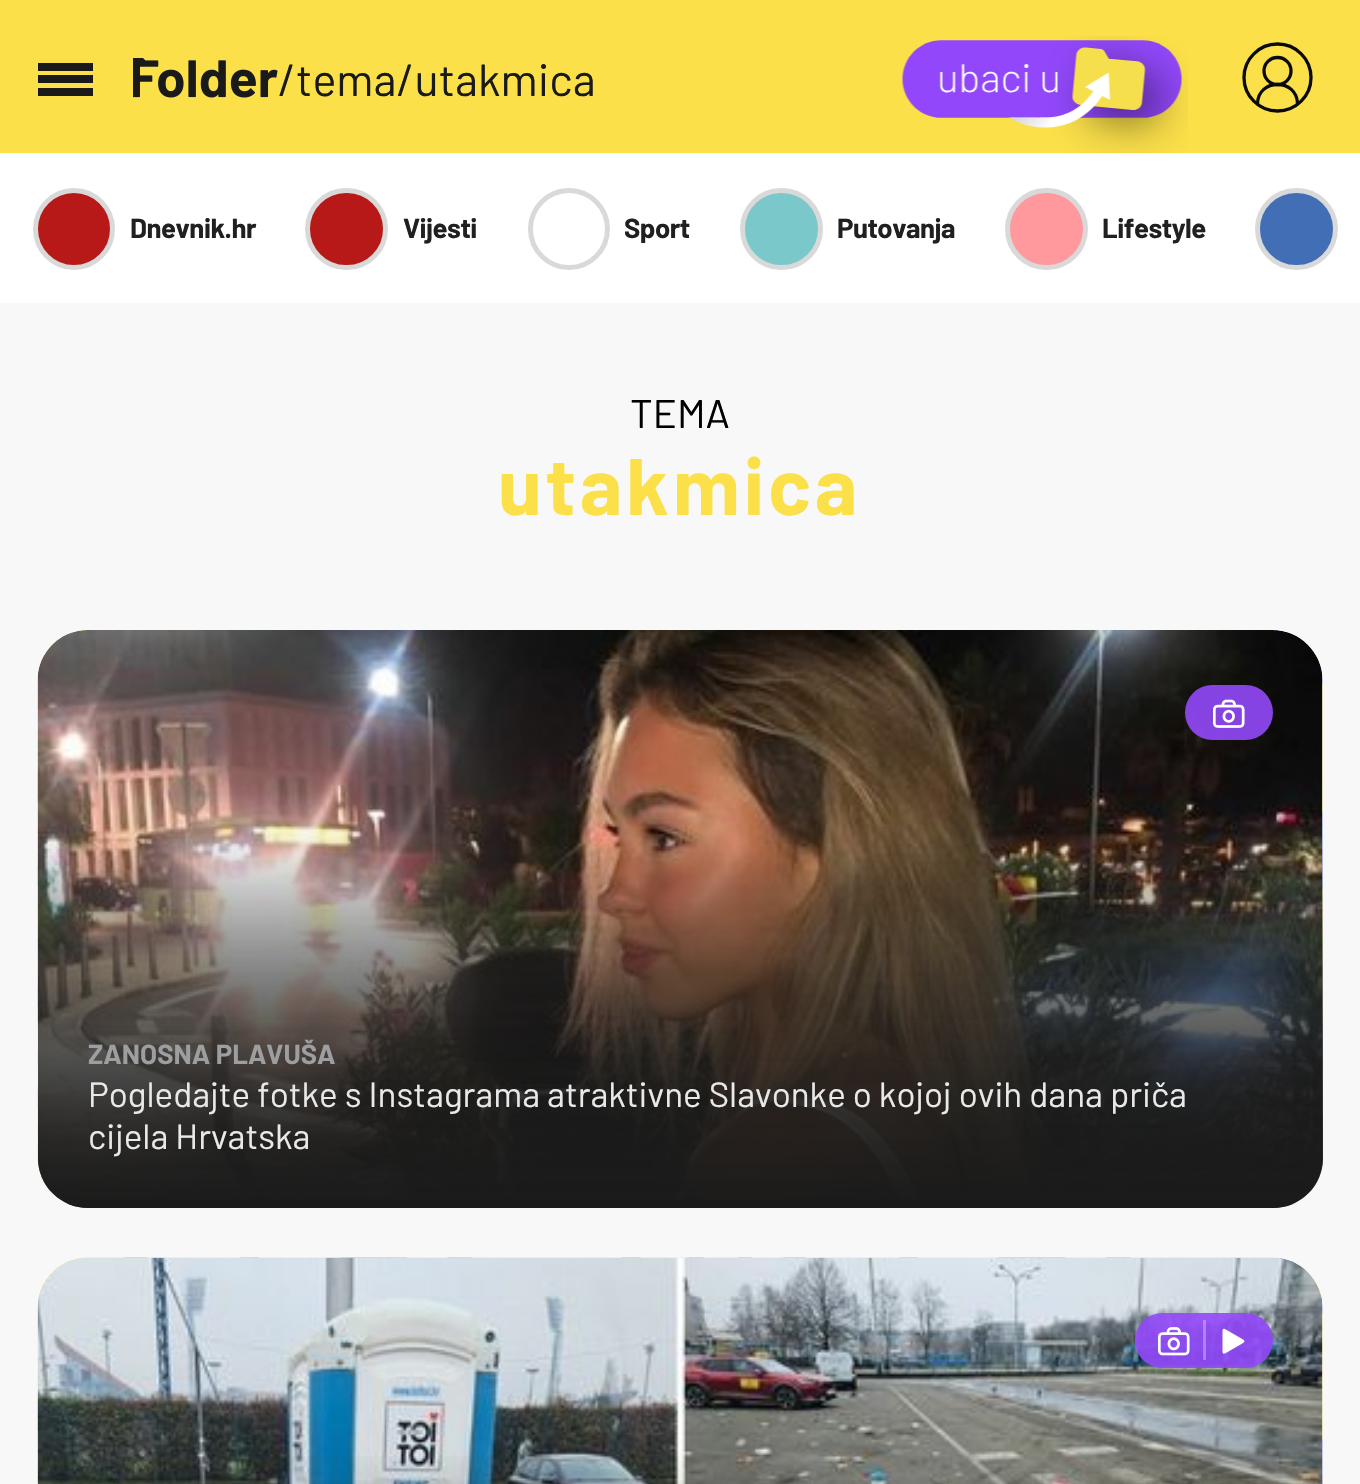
void draw(SkCanvas* canvas) {
    SkPaint paint;
    paint.setAntiAlias(true);
    auto face = [&](const char* family, int weight, float size, bool italic = false) {
        SkFontStyle style(weight, SkFontStyle::kNormal_Width,
            italic ? SkFontStyle::kItalic_Slant : SkFontStyle::kUpright_Slant);
        SkFont result(fontMgr->matchFamilyStyle(family, style), size);
        result.setSubpixel(true);
        return result;
    };
    auto write = [&](const char* s, float x, float y, const SkFont& font, SkColor color) {
        SkPaint ink(SkColor4f::FromColor(color));
        ink.setAntiAlias(true);
        canvas->drawString(s, x, y, font, ink);
    };
    auto writeSpaced = [&](const char* s, float x, float y, const SkFont& font, const SkPaint& ink, float letter, float word) {
        std::vector<SkGlyphID> glyphs(font.countText(s, strlen(s), SkTextEncoding::kUTF8));
        std::vector<float> xs(glyphs.size());
        font.textToGlyphs(s, strlen(s), SkTextEncoding::kUTF8, glyphs);
        font.getXPos(glyphs, xs, x);
        float extra = 0;
        for (size_t i = 0; i < glyphs.size(); i++) {
            xs[i] += extra;
            extra += letter + word * (glyphs[i] == font.unicharToGlyph(' '));
        }
        canvas->drawTextBlob(SkTextBlob::MakeFromPosHGlyphs(glyphs, xs, y, font), 0, 0, ink);
    };
    auto block = [&](float x, float y, float w, float h, SkColor color) {
        SkPaint ink(SkColor4f::FromColor(color));
        ink.setAntiAlias(true);
        canvas->drawRect(SkRect::MakeXYWH(x, y, w, h), ink);
    };
    auto card = [&](float x, float y, float w, float h, float radius, SkColor color) {
        SkPaint ink(SkColor4f::FromColor(color));
        ink.setAntiAlias(true);
        canvas->drawRoundRect(SkRect::MakeXYWH(x, y, w, h), radius, radius, ink);
    };
    auto paste = [&](const char* path, float x, float y, float w, float h) {
        auto image = SkImages::DeferredFromEncodedData(SkData::MakeFromFileName(path));
        canvas->drawImageRect(image, SkRect::MakeXYWH(x, y, w, h), SkSamplingOptions());
    };
    canvas->clear(SkColorSetRGB(248, 248, 248));
    block(0, 0, 1360, 153, SkColorSetRGB(251, 224, 73));
    block(38, 75, 55, 8, SkColorSetRGB(26, 26, 26));
    block(38, 63, 55, 8, SkColorSetRGB(26, 26, 26));
    block(38, 88, 55, 8, SkColorSetRGB(26, 26, 26));
    paste("pic1.png", 133, 58, 145, 40);
    auto kFont1 = face("Barlow", 400, 45);
    write("/tema/utakmica", 278, 96, kFont1, SkColorSetRGB(26, 26, 26));
    block(0, 153, 1360, 150, SK_ColorWHITE);
    paste("pic2.png", 902, 36, 286, 119);
    paint.setStyle(SkPaint::kStroke_Style);
    paint.setStrokeWidth(3.3f);
    paint.setStrokeCap(SkPaint::kRound_Cap);
    paint.setStrokeJoin(SkPaint::kRound_Join);
    paint.setColor(SkColorSetRGB(10, 10, 10));
    canvas->drawPath(SkPathBuilder().moveTo(1297.5f, 104).cubicTo(1297.5f, 78, 1257.5f, 78, 1257.5f, 104).detach(), paint);
    paint.setStrokeCap(SkPaint::kButt_Cap);
    paint.setStrokeJoin(SkPaint::kMiter_Join);
    canvas->drawCircle(1277.5f, 71, 13.5f, paint);
    canvas->drawCircle(1277.5f, 77.5f, 33.5f, paint);
    paint.setStyle(SkPaint::kFill_Style);
    paint.setColor(SkColorSetRGB(183, 25, 24));
    canvas->drawCircle(74, 229, 38.5f, paint);
    paint.setStyle(SkPaint::kStroke_Style);
    paint.setStrokeWidth(5);
    paint.setColor(SkColorSetRGB(217, 217, 217));
    canvas->drawCircle(74, 229, 38.5f, paint);
    auto kFont2 = face("Barlow", 700, 27.5f);
    paint.setStyle(SkPaint::kFill_Style);
    paint.setColor(SkColorSetRGB(32, 32, 32));
    writeSpaced("Dnevnik.hr", 130, 238, kFont2, paint, -0.5f, 0);
    paint.setColor(SkColorSetRGB(183, 25, 24));
    canvas->drawRoundRect(SkRect::MakeXYWH(307.5f, 190.5f, 78, 77), 38.5f, 38.5f, paint);
    paint.setStyle(SkPaint::kStroke_Style);
    paint.setColor(SkColorSetRGB(217, 217, 217));
    canvas->drawRoundRect(SkRect::MakeXYWH(307.5f, 190.5f, 78, 77), 38.5f, 38.5f, paint);
    paint.setStyle(SkPaint::kFill_Style);
    paint.setColor(SkColorSetRGB(32, 32, 32));
    writeSpaced("Vijesti", 403, 238, kFont2, paint, -0.5f, 0);
    paint.setStyle(SkPaint::kStroke_Style);
    paint.setColor(SkColorSetRGB(217, 217, 217));
    canvas->drawCircle(569, 229, 38.5f, paint);
    paint.setStyle(SkPaint::kFill_Style);
    paint.setColor(SkColorSetRGB(32, 32, 32));
    writeSpaced("Sport", 624, 238, kFont2, paint, -0.5f, 0);
    paint.setColor(SkColorSetRGB(123, 200, 202));
    canvas->drawRoundRect(SkRect::MakeXYWH(742.5f, 190.5f, 78, 77), 38.5f, 38.5f, paint);
    paint.setStyle(SkPaint::kStroke_Style);
    paint.setColor(SkColorSetRGB(217, 217, 217));
    canvas->drawRoundRect(SkRect::MakeXYWH(742.5f, 190.5f, 78, 77), 38.5f, 38.5f, paint);
    paint.setStyle(SkPaint::kFill_Style);
    paint.setColor(SkColorSetRGB(32, 32, 32));
    writeSpaced("Putovanja", 837, 238, kFont2, paint, -0.5f, 0);
    paint.setColor(SkColorSetRGB(255, 153, 157));
    canvas->drawRoundRect(SkRect::MakeXYWH(1007.5f, 190.5f, 78, 77), 38.5f, 38.5f, paint);
    paint.setStyle(SkPaint::kStroke_Style);
    paint.setColor(SkColorSetRGB(217, 217, 217));
    canvas->drawRoundRect(SkRect::MakeXYWH(1007.5f, 190.5f, 78, 77), 38.5f, 38.5f, paint);
    paint.setStyle(SkPaint::kFill_Style);
    paint.setColor(SkColorSetRGB(32, 32, 32));
    writeSpaced("Lifestyle", 1102, 238, kFont2, paint, -0.5f, 0);
    paint.setColor(SkColorSetRGB(66, 110, 181));
    canvas->drawRoundRect(SkRect::MakeXYWH(1257.5f, 190.5f, 78, 77), 38.5f, 38.5f, paint);
    paint.setStyle(SkPaint::kStroke_Style);
    paint.setColor(SkColorSetRGB(217, 217, 217));
    canvas->drawRoundRect(SkRect::MakeXYWH(1257.5f, 190.5f, 78, 77), 38.5f, 38.5f, paint);
    auto kFont3 = face("Barlow", 400, 40);
    write("TEMA", 630, 428, kFont3, SK_ColorBLACK);
    auto kFont4 = face("Barlow", 700, 80);
    paint.setStyle(SkPaint::kFill_Style);
    paint.setColor(SkColorSetRGB(251, 224, 73));
    writeSpaced("utakmica", 498, 515, kFont4, paint, 4, 0);
    paste("pic3.png", 37, 630, 1286, 578);
    paste("pic4.png", 37, 630, 1286, 578);
    {
        const SkColor colors[] = {SkColorSetARGB(0, 26, 26, 26), SkColorSetRGB(26, 26, 26)};
        const float stops[] = {0.37f, 1};
        const SkPoint ends[] = {{680, 630}, {680, 1208}};
        paint.setShader(SkGradientShader::MakeLinear(ends, colors, stops, 2, SkTileMode::kClamp));
        paint.setAlpha(255);
    }
    canvas->drawRoundRect(SkRect::MakeXYWH(38, 630, 1285, 578), 50, 50, paint);
    {
        const SkColor colors[] = {SkColorSetARGB(0, 26, 26, 26), SkColorSetARGB(179, 26, 26, 26)};
        const float stops[] = {0.32f, 1};
        const SkPoint ends[] = {{680, 630}, {680, 1208}};
        paint.setShader(SkGradientShader::MakeLinear(ends, colors, stops, 2, SkTileMode::kClamp));
        paint.setAlpha(255);
    }
    canvas->drawRoundRect(SkRect::MakeXYWH(38, 630, 1285, 578), 50, 50, paint);
    card(1185, 685, 88, 55, 27.5f, SkColorSetARGB(230, 146, 72, 250));
    paste("pic5.png", 1213, 699, 32, 29);
    write("ZANOSNA PLAVUŠA", 88, 1064, kFont2, SkColorSetRGB(157, 158, 159));
    auto kFont5 = face("Barlow", 400, 35);
    write("Pogledajte fotke s Instagrama atraktivne Slavonke o kojoj ovih dana priča", 88, 1107, kFont5, SkColorSetRGB(233, 233, 233));
    write("cijela Hrvatska", 88, 1149, kFont5, SkColorSetRGB(233, 233, 233));
    paste("pic6.png", 37, 1257, 1286, 227);
    paste("pic7.png", 37, 1257, 1286, 227);
    card(1135, 1313, 138, 55, 27.5f, SkColorSetARGB(230, 146, 72, 250));
    paste("pic8.png", 1158, 1327, 32, 29);
    block(1203, 1320, 3, 40, SkColorSetARGB(77, 255, 255, 255));
    paste("pic9.png", 1222, 1328, 23, 26);
    {
        const SkColor colors[] = {SkColorSetARGB(0, 26, 26, 26), SkColorSetRGB(26, 26, 26)};
        const float stops[] = {0.37f, 1};
        const SkPoint ends[] = {{680, 1258}, {680, 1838}};
        paint.setShader(SkGradientShader::MakeLinear(ends, colors, stops, 2, SkTileMode::kClamp));
        paint.setAlpha(255);
    }
    canvas->drawRect(SkRect::MakeXYWH(203, 1480, 1120, 4), paint);
    {
        const SkColor colors[] = {SkColorSetARGB(0, 26, 26, 26), SkColorSetARGB(179, 26, 26, 26)};
        const float stops[] = {0.32f, 1};
        const SkPoint ends[] = {{680, 1258}, {680, 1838}};
        paint.setShader(SkGradientShader::MakeLinear(ends, colors, stops, 2, SkTileMode::kClamp));
        paint.setAlpha(255);
    }
    canvas->drawRect(SkRect::MakeXYWH(38, 1456, 1285, 28), paint);
}
